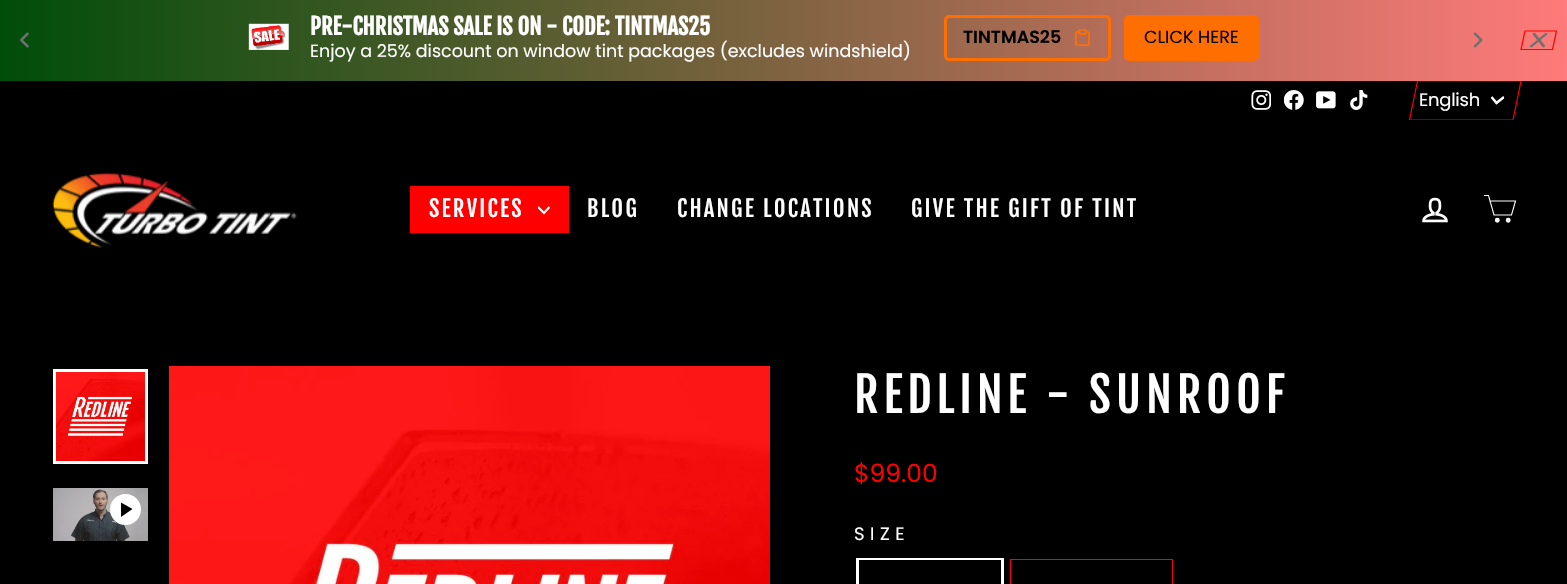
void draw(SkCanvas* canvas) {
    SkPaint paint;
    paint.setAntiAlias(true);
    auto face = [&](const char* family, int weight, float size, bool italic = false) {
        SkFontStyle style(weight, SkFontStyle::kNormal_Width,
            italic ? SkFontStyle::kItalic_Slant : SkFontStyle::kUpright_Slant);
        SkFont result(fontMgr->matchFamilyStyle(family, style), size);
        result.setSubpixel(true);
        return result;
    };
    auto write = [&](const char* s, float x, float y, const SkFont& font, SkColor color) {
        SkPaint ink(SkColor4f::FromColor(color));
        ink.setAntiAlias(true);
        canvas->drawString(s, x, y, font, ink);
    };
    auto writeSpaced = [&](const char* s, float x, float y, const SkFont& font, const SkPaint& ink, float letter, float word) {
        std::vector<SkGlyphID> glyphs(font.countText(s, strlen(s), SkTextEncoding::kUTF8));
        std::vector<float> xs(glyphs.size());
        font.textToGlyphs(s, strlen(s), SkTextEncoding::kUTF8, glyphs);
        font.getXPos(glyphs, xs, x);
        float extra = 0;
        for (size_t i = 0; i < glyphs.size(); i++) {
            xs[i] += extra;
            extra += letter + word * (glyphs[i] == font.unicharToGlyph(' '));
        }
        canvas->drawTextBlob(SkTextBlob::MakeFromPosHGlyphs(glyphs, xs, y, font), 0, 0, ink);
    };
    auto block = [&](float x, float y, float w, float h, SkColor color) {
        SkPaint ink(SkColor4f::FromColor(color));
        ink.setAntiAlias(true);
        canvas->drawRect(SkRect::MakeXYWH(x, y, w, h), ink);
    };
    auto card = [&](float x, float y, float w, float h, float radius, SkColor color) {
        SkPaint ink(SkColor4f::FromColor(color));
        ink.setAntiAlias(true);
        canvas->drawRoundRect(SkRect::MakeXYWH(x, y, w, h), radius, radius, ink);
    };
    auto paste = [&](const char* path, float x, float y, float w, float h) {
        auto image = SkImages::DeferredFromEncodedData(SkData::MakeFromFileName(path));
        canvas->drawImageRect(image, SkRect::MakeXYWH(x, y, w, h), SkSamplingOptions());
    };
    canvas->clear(SK_ColorBLACK);
    paint.setStyle(SkPaint::kStroke_Style);
    paint.setStrokeWidth(1.2f);
    paint.setColor(SkColorSetRGB(255, 0, 0));
    canvas->drawPath(SkPathBuilder().moveTo(1417.5f, 81).lineTo(1521, 81).lineTo(1513, 120).lineTo(1409.5f, 120).close().detach(), paint);
    paint.setStyle(SkPaint::kFill_Style);
    {
        const SkColor colors[] = {SkColorSetRGB(0, 77, 9), SkColorSetRGB(255, 122, 122)};
        const float stops[] = {0, 1};
        const SkPoint ends[] = {{0, 41}, {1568, 41}};
        paint.setShader(SkGradientShader::MakeLinear(ends, colors, stops, 2, SkTileMode::kClamp));
        paint.setAlpha(255);
    }
    canvas->drawRect(SkRect::MakeXYWH(0, 0, 1567, 81), paint);
    paste("pic1.png", 248, 23, 41, 27);
    auto kFont1 = face("Fjalla One", 700, 22.5f);
    write("PRE-CHRISTMAS SALE IS ON - CODE: TINTMAS25", 310, 35, kFont1, SK_ColorWHITE);
    auto kFont2 = face("Poppins", 400, 17.5f);
    write("Enjoy a 25% discount on window tint packages (excludes windshield)", 310, 57, kFont2, SK_ColorWHITE);
    paint.setStyle(SkPaint::kStroke_Style);
    paint.setStrokeWidth(3);
    paint.setShader(nullptr);
    paint.setColor(SkColorSetRGB(255, 110, 0));
    canvas->drawRoundRect(SkRect::MakeXYWH(945.5f, 16.5f, 164, 43), 3.5f, 3.5f, paint);
    auto kFont3 = face("Poppins", 600, 17.5f);
    write("TINTMAS25", 963, 43, kFont3, SK_ColorBLACK);
    paste("pic2.png", 1075, 29, 15, 17);
    card(1124, 15, 135, 46, 5, SkColorSetRGB(255, 110, 0));
    write("CLICK HERE", 1144, 43, kFont2, SK_ColorBLACK);
    paste("pic3.png", 20, 32, 9, 16);
    paste("pic4.png", 1473, 32, 10, 16);
    paint.setStrokeWidth(1.2f);
    paint.setColor(SkColorSetRGB(255, 0, 0));
    canvas->drawPath(SkPathBuilder().moveTo(1525, 31).lineTo(1556.5f, 31).lineTo(1552.5f, 49.5f).lineTo(1521, 49.5f).close().detach(), paint);
    paste("pic5.png", 1530, 32, 18, 16);
    paste("pic6.png", 1251, 90, 20, 20);
    paste("pic7.png", 1284, 90, 20, 20);
    paste("pic8.png", 1316, 91, 20, 18);
    paste("pic9.png", 1350, 90, 18, 20);
    auto kFont4 = face("Poppins", 400, 18);
    paint.setStyle(SkPaint::kFill_Style);
    paint.setColor(SK_ColorWHITE);
    writeSpaced("English", 1419, 106, kFont4, paint, -0.25f, 0);
    canvas->save();
    canvas->clipPath(SkPathBuilder().moveTo(1491.5f, 93.5f).lineTo(1505, 93.5f).lineTo(1502.5f, 107.5f).lineTo(1488.5f, 107.5f).close().detach(), true);
    paint.setStyle(SkPaint::kStroke_Style);
    paint.setStrokeWidth(2.5f);
    canvas->drawPath(SkPathBuilder().moveTo(1491.5f, 97).lineTo(1496.5f, 103).lineTo(1504, 97).detach(), paint);
    canvas->restore();
    paint.setStyle(SkPaint::kFill_Style);
    paint.setColor(SkColorSetARGB(51, 0, 0, 0));
    paint.setMaskFilter(SkMaskFilter::MakeBlur(kNormal_SkBlurStyle, 0.5f));
    canvas->drawRect(SkRect::MakeXYWH(0, 120, 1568, 179), paint);
    paint.setMaskFilter(nullptr);
    block(1408, 120, 106, 1, SK_ColorBLACK);
    paste("pic10.png", 52, 172, 245, 76);
    block(410, 186, 159, 47, SkColorSetRGB(255, 0, 0));
    auto kFont5 = face("Fjalla One", 400, 22.5f);
    paint.setColor(SK_ColorWHITE);
    writeSpaced("SERVICES", 429, 217, kFont5, paint, 2.25f, 0);
    canvas->save();
    canvas->clipRect(SkRect::MakeXYWH(538, 204, 12, 12));
    paint.setStyle(SkPaint::kStroke_Style);
    paint.setStrokeWidth(2.2f);
    canvas->drawPath(SkPathBuilder().moveTo(538, 207).lineTo(544, 213).lineTo(549.5f, 207).detach(), paint);
    canvas->restore();
    paint.setStyle(SkPaint::kFill_Style);
    writeSpaced("BLOG", 587, 217, kFont5, paint, 2.25f, 0);
    writeSpaced("CHANGE LOCATIONS", 677, 217, kFont5, paint, 2.25f, 0);
    writeSpaced("GIVE THE GIFT OF TINT", 911, 217, kFont5, paint, 2.25f, 0);
    paste("pic11.png", 1422, 197, 26, 26);
    paint.setStyle(SkPaint::kStroke_Style);
    paint.setStrokeWidth(1.1f);
    canvas->drawPath(SkPathBuilder().moveTo(1490, 201).lineTo(1515.5f, 201).lineTo(1511.5f, 215).lineTo(1494, 215).lineTo(1488.5f, 195.5f).lineTo(1484, 195.5f).detach(), paint);
    paint.setStrokeWidth(2.7f);
    canvas->drawCircle(1497.3f, 220.2f, 1.1f, paint);
    canvas->drawCircle(1508.2f, 220.2f, 1.1f, paint);
    paste("pic12.png", 56, 372, 89, 89);
    paint.setStrokeWidth(3);
    canvas->drawRect(SkRect::MakeXYWH(54.5f, 370.5f, 92, 92), paint);
    paste("pic13.png", 53, 488, 95, 53);
    paint.setStyle(SkPaint::kFill_Style);
    canvas->drawCircle(125.5f, 509.5f, 15.5f, paint);
    paint.setColor(SK_ColorBLACK);
    canvas->drawPath(SkPathBuilder().moveTo(121, 502.5f).lineTo(121, 517).lineTo(132.5f, 509).close().detach(), paint);
    paste("pic14.png", 169, 366, 601, 218);
    auto kFont6 = face("Fjalla One", 400, 47.75f);
    paint.setColor(SK_ColorWHITE);
    writeSpaced("REDLINE - SUNROOF", 854, 413, kFont6, paint, 4.75f, 0);
    auto kFont7 = face("Poppins", 400, 25);
    write("$99.00", 854, 482, kFont7, SkColorSetRGB(255, 0, 0));
    writeSpaced("SIZE", 854, 540, kFont4, paint, 5.5f, 0);
    paint.setStyle(SkPaint::kStroke_Style);
    canvas->drawRect(SkRect::MakeXYWH(857.5f, 559.5f, 145, 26), paint);
    block(859, 560, 142, 1, SK_ColorBLACK);
    paint.setStrokeWidth(1);
    paint.setColor(SkColorSetRGB(255, 0, 0));
    canvas->drawRect(SkRect::MakeXYWH(1010.5f, 559.5f, 162, 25), paint);
}
